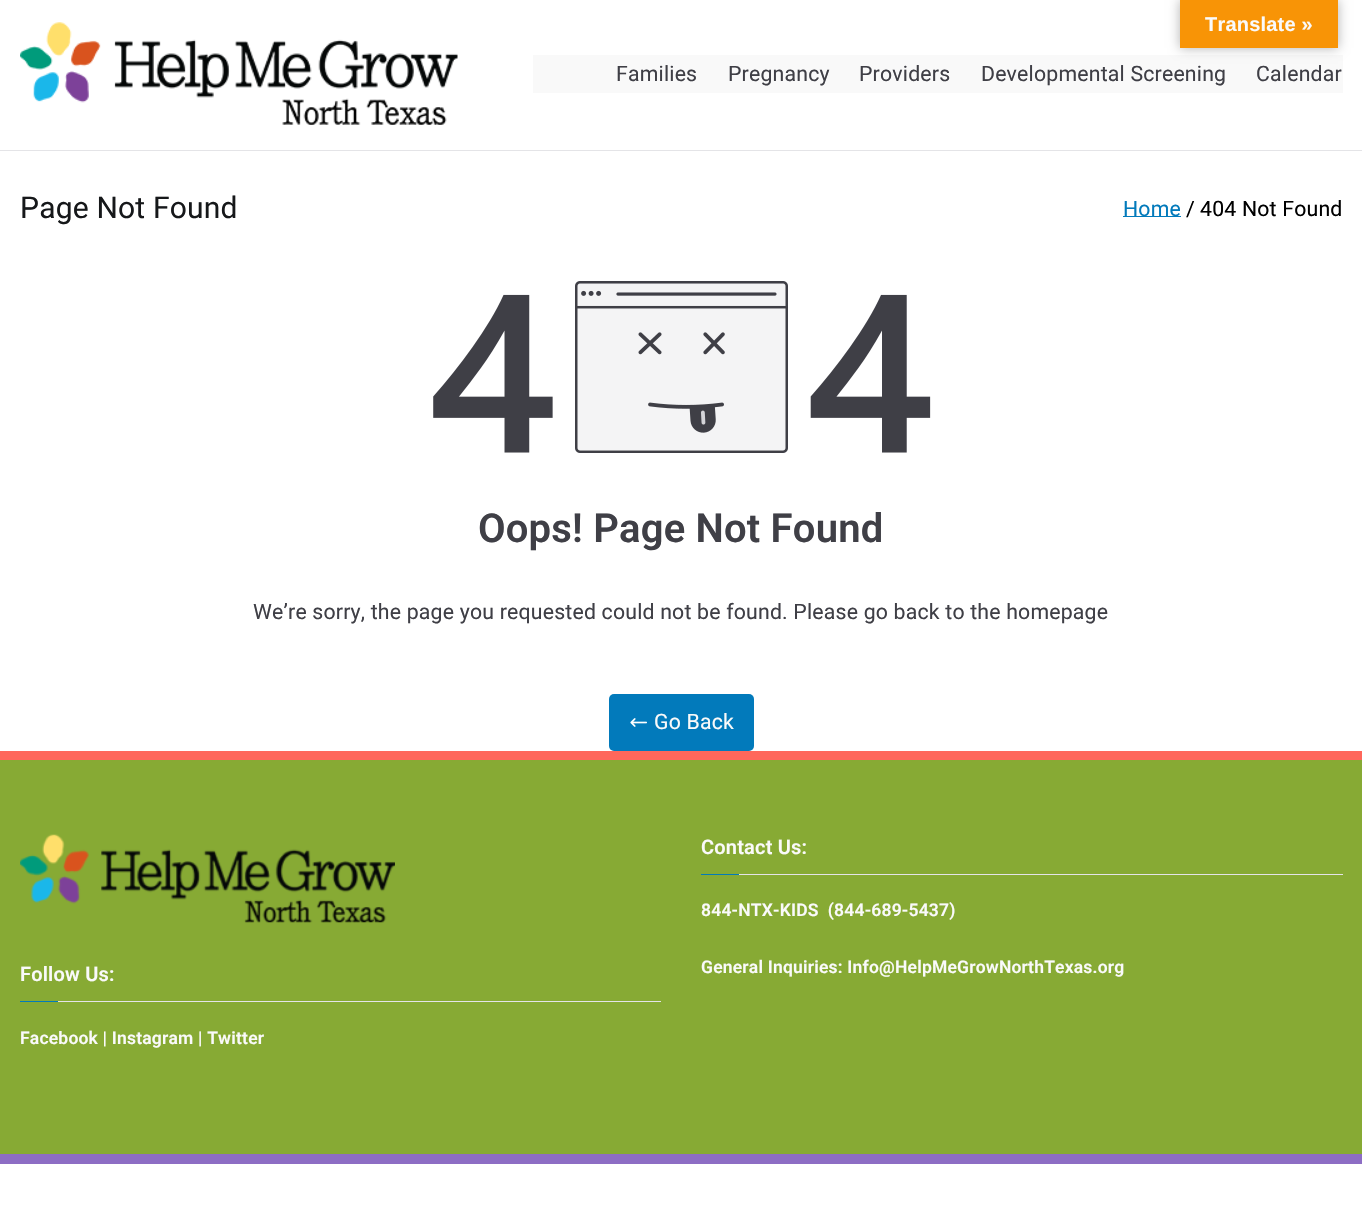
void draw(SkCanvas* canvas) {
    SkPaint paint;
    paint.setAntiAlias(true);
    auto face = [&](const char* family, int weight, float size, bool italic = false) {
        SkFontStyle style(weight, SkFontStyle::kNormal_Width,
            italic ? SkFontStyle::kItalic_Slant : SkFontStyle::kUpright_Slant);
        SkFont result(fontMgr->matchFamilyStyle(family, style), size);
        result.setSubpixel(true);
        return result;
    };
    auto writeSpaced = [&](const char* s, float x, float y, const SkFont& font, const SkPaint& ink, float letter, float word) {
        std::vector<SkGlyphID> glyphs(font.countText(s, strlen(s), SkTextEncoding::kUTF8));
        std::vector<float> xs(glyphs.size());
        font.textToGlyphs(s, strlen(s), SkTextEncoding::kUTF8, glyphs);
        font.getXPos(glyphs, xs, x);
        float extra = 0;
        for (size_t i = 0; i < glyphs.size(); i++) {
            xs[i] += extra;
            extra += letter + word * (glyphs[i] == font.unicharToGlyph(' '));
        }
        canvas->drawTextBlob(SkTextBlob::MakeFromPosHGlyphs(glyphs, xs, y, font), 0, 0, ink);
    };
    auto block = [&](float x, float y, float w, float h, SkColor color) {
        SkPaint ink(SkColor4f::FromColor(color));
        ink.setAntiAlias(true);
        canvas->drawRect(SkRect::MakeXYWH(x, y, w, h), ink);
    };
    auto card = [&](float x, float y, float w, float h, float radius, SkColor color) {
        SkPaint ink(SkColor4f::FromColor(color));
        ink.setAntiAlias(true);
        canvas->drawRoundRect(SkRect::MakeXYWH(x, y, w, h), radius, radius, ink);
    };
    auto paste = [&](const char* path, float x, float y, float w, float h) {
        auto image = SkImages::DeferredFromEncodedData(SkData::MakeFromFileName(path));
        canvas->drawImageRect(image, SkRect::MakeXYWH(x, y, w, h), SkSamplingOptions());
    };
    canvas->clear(SkColorSetRGB(228, 228, 231));
    block(0, 0, 1362, 150, SK_ColorWHITE);
    block(533, 55, 810, 38, SkColorSetRGB(249, 249, 249));
    paint.setColor(SkColorSetARGB(77, 0, 0, 0));
    paint.setMaskFilter(SkMaskFilter::MakeBlur(kNormal_SkBlurStyle, 5.5f));
    canvas->drawRect(SkRect::MakeXYWH(1180, 0, 158, 48), paint);
    paint.setMaskFilter(nullptr);
    block(1180, 0, 158, 48, SkColorSetRGB(248, 148, 6));
    auto kFont1 = face("Liberation Sans", 700, 20);
    paint.setColor(SkColorSetRGB(250, 250, 250));
    writeSpaced("Translate »", 1205, 31, kFont1, paint, 0.2f, 0);
    paste("pic1.png", 20, 22, 438, 103);
    auto kFont2 = face("Roboto", 400, 21.25f);
    paint.setColor(SkColorSetRGB(63, 63, 70));
    writeSpaced("Families", 616, 81, kFont2, paint, 0.2f, 0);
    writeSpaced("Pregnancy", 728, 81, kFont2, paint, 0.2f, 0);
    writeSpaced("Providers", 859, 81, kFont2, paint, 0.2f, 0);
    writeSpaced("Developmental Screening", 981, 81, kFont2, paint, 0.2f, 0);
    writeSpaced("Calendar", 1256, 81, kFont2, paint, 0.2f, 0);
    block(0, 151, 1362, 600, SK_ColorWHITE);
    auto kFont3 = face("Roboto", 400, 30);
    paint.setColor(SkColorSetRGB(22, 24, 26));
    writeSpaced("Page Not Found", 20, 218, kFont3, paint, 0.2f, 0);
    block(1123, 216, 58, 1, SkColorSetRGB(2, 122, 187));
    paint.setColor(SkColorSetRGB(2, 122, 187));
    writeSpaced("Home", 1123, 216, kFont2, paint, 0.2f, 0);
    paint.setColor(SK_ColorBLACK);
    writeSpaced("/", 1186, 216, kFont2, paint, 0.2f, 0);
    writeSpaced("404 Not Found", 1200, 216, kFont2, paint, 0.2f, 0);
    paste("pic2.png", 433, 281, 498, 172);
    auto kFont4 = face("Roboto", 600, 40);
    paint.setColor(SkColorSetRGB(63, 63, 70));
    writeSpaced("Oops! Page Not Found", 478, 542, kFont4, paint, 0.2f, 0);
    writeSpaced("We’re sorry, the page you requested could not be found. Please go back to the homepage", 253, 619, kFont2, paint, 0.2f, 0);
    card(609, 694, 145, 57, 5, SkColorSetRGB(2, 122, 187));
    paste("pic3.png", 630, 718, 17, 9);
    paint.setColor(SkColorSetRGB(250, 250, 250));
    writeSpaced("Go Back", 654, 729, kFont2, paint, 0.2f, 0);
    block(0, 760, 1362, 394, SkColorSetRGB(135, 170, 52));
    block(0, 751, 1362, 9, SkColorSetRGB(255, 103, 91));
    block(739, 874, 604, 1, SkColorSetRGB(228, 228, 231));
    auto kFont5 = face("Roboto", 600, 20);
    writeSpaced("Contact Us:", 701, 854, kFont5, paint, 0.2f, 0);
    block(701, 874, 38, 1, SkColorSetRGB(2, 122, 187));
    auto kFont6 = face("Roboto", 600, 17.5f);
    writeSpaced("844-NTX-KIDS  (844-689-5437)", 701, 916, kFont6, paint, 0.2f, 0);
    writeSpaced("General Inquiries: Info@HelpMeGrowNorthTexas.org", 701, 973, kFont6, paint, 0.2f, 0);
    paste("pic4.png", 20, 834, 375, 89);
    block(58, 1001, 603, 1, SkColorSetRGB(228, 228, 231));
    writeSpaced("Follow Us:", 20, 981, kFont5, paint, 0.2f, 0);
    block(20, 1001, 38, 1, SkColorSetRGB(2, 122, 187));
    writeSpaced("Facebook | Instagram | Twitter", 20, 1044, kFont6, paint, 0.2f, 0);
    block(0, 1164, 1362, 46, SK_ColorWHITE);
    block(0, 1154, 1362, 10, SkColorSetRGB(141, 109, 196));
}
